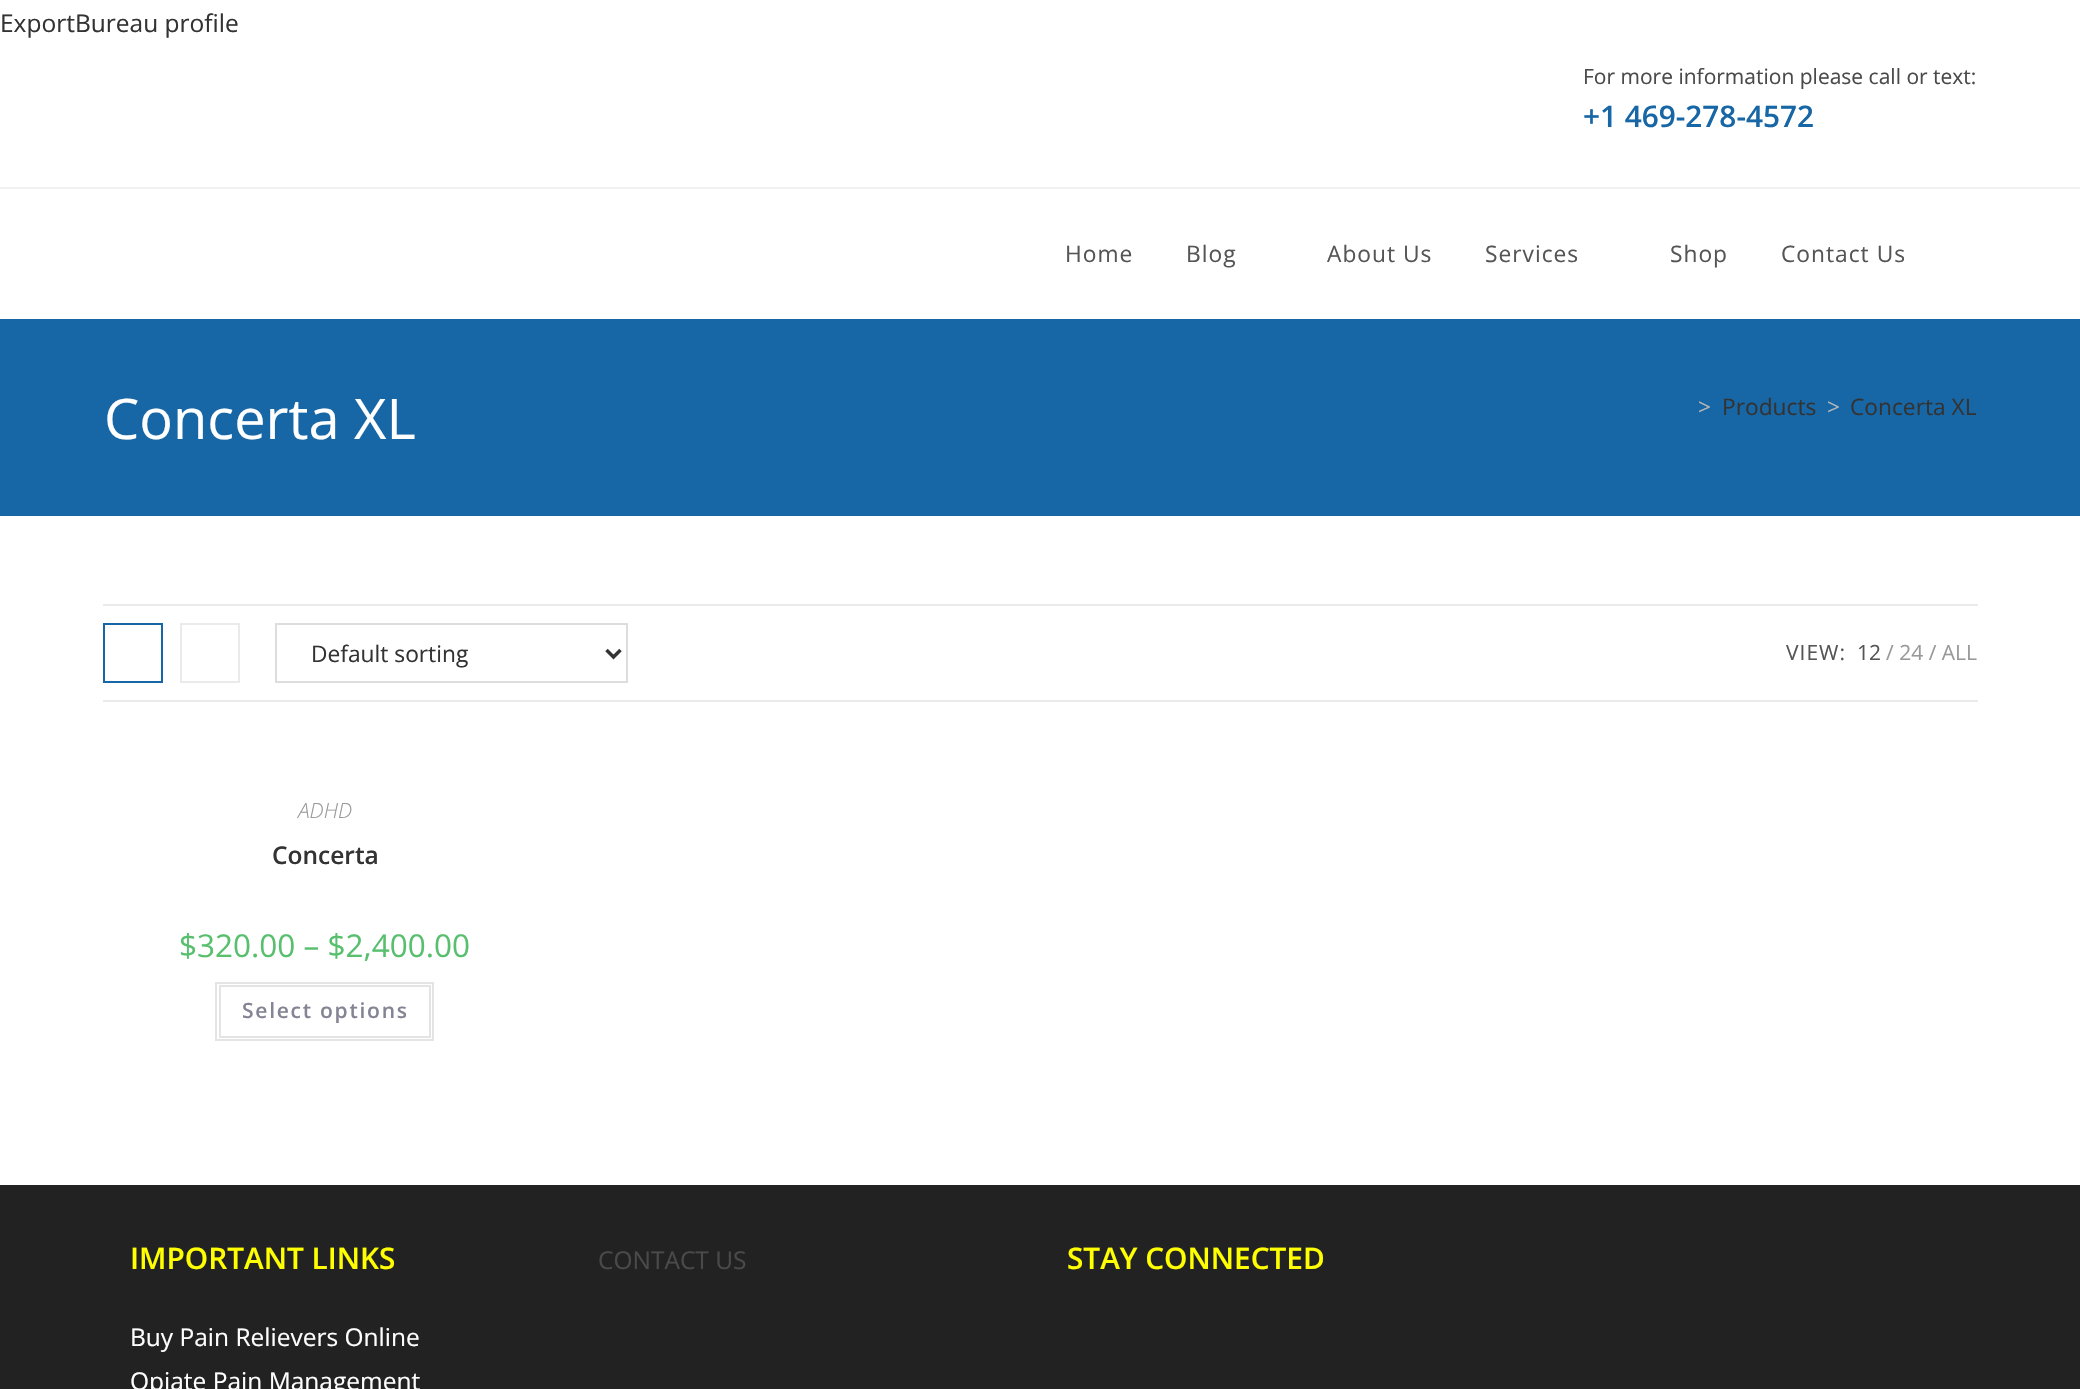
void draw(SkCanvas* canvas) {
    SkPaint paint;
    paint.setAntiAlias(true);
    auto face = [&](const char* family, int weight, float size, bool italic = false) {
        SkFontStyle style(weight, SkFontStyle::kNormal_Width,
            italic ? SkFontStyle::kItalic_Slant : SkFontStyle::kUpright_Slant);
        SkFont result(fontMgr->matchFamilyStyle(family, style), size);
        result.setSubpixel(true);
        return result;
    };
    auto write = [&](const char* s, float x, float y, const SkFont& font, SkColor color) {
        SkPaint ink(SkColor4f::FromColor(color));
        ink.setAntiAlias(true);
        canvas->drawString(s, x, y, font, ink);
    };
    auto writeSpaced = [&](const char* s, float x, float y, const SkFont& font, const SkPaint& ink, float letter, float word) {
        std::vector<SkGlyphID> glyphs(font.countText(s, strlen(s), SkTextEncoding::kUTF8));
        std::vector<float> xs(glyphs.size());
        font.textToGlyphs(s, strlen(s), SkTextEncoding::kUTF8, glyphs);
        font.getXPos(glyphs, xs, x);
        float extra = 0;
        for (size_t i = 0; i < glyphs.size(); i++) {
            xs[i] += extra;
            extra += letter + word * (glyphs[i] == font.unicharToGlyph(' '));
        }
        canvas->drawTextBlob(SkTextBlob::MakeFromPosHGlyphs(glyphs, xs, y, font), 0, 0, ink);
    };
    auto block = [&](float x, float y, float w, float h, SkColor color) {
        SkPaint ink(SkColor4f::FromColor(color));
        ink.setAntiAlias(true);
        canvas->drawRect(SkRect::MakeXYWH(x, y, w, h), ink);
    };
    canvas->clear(SK_ColorWHITE);
    auto kFont1 = face("Open Sans", 400, 24.5f);
    write("ExportBureau profile", 0, 32, kFont1, SkColorSetRGB(51, 51, 51));
    block(0, 187, 2080, 2, SkColorSetRGB(241, 241, 241));
    auto kFont2 = face("Open Sans", 400, 21);
    write("For more information please call or text:", 1583, 84, kFont2, SkColorSetRGB(74, 74, 74));
    auto kFont3 = face("Open Sans", 600, 29.75f);
    write("+1 469-278-4572", 1583, 127, kFont3, SkColorSetRGB(23, 102, 165));
    auto kFont4 = face("Open Sans", 400, 22.75f);
    paint.setColor(SkColorSetRGB(85, 85, 85));
    writeSpaced("Home", 1065, 262, kFont4, paint, 1, 0);
    writeSpaced("Blog", 1186, 262, kFont4, paint, 1, 0);
    writeSpaced("About Us", 1327, 262, kFont4, paint, 1, 0);
    writeSpaced("Services", 1485, 262, kFont4, paint, 1, 0);
    writeSpaced("Shop", 1670, 262, kFont4, paint, 1, 0);
    writeSpaced("Contact Us", 1781, 262, kFont4, paint, 1, 0);
    block(0, 319, 2080, 197, SkColorSetRGB(23, 102, 165));
    auto kFont5 = face("Open Sans", 400, 56);
    write("Concerta XL", 104, 439, kFont5, SK_ColorWHITE);
    write(">", 1698, 415, kFont4, SkColorSetRGB(183, 183, 183));
    write("Products", 1722, 415, kFont4, SkColorSetRGB(51, 51, 51));
    write(">", 1827, 415, kFont4, SkColorSetRGB(183, 183, 183));
    write("Concerta XL", 1850, 415, kFont4, SkColorSetRGB(51, 51, 51));
    block(103, 604, 1875, 2, SkColorSetRGB(234, 234, 234));
    block(103, 700, 1875, 2, SkColorSetRGB(234, 234, 234));
    paint.setStyle(SkPaint::kStroke_Style);
    paint.setStrokeWidth(2);
    paint.setColor(SkColorSetRGB(23, 102, 165));
    canvas->drawRect(SkRect::MakeXYWH(104, 624, 58, 58), paint);
    paint.setColor(SkColorSetRGB(234, 234, 234));
    canvas->drawRect(SkRect::MakeXYWH(181, 624, 58, 58), paint);
    paint.setColor(SkColorSetRGB(221, 221, 221));
    canvas->drawRect(SkRect::MakeXYWH(276, 624, 351, 58), paint);
    paint.setStrokeWidth(3.5f);
    paint.setColor(SkColorSetRGB(51, 51, 51));
    canvas->drawPath(SkPathBuilder().moveTo(606.5f, 650).lineTo(613.5f, 657).lineTo(620.5f, 650).detach(), paint);
    write("Default sorting", 311, 662, kFont4, SkColorSetRGB(51, 51, 51));
    paint.setStyle(SkPaint::kFill_Style);
    paint.setColor(SkColorSetRGB(85, 85, 85));
    writeSpaced("VIEW:", 1786, 660, kFont2, paint, 1, 0);
    write("12", 1857, 660, kFont2, SkColorSetRGB(85, 85, 85));
    write("/ 24 / ALL", 1886, 660, kFont2, SkColorSetRGB(153, 153, 153));
    auto kFont6 = face("Open Sans", 300, 21, true);
    write("ADHD", 298, 818, kFont6, SkColorSetRGB(153, 153, 153));
    auto kFont7 = face("Open Sans", 600, 24.5f);
    write("Concerta", 272, 864, kFont7, SkColorSetRGB(51, 51, 51));
    auto kFont8 = face("Open Sans", 400, 31.5f);
    write("$320.00 – $2,400.00", 179, 957, kFont8, SkColorSetRGB(87, 191, 109));
    paint.setStyle(SkPaint::kStroke_Style);
    paint.setStrokeWidth(2);
    paint.setColor(SkColorSetRGB(228, 228, 228));
    canvas->drawRect(SkRect::MakeXYWH(216, 983, 217, 57), paint);
    canvas->drawRect(SkRect::MakeXYWH(220, 986, 210, 51), paint);
    auto kFont9 = face("Open Sans", 600, 21);
    paint.setStyle(SkPaint::kFill_Style);
    paint.setColor(SkColorSetRGB(132, 132, 148));
    writeSpaced("Select options", 242, 1018, kFont9, paint, 1.75f, 0);
    block(0, 1185, 2080, 204, SkColorSetRGB(34, 34, 34));
    write("IMPORTANT LINKS", 130, 1269, kFont3, SkColorSetRGB(255, 255, 0));
    write("Buy Pain Relievers Online", 130, 1346, kFont1, SK_ColorWHITE);
    write("Opiate Pain Management", 130, 1390, kFont1, SK_ColorWHITE);
    write("CONTACT US", 598, 1269, kFont1, SkColorSetRGB(74, 74, 74));
    write("STAY CONNECTED", 1067, 1269, kFont3, SkColorSetRGB(255, 255, 0));
}
